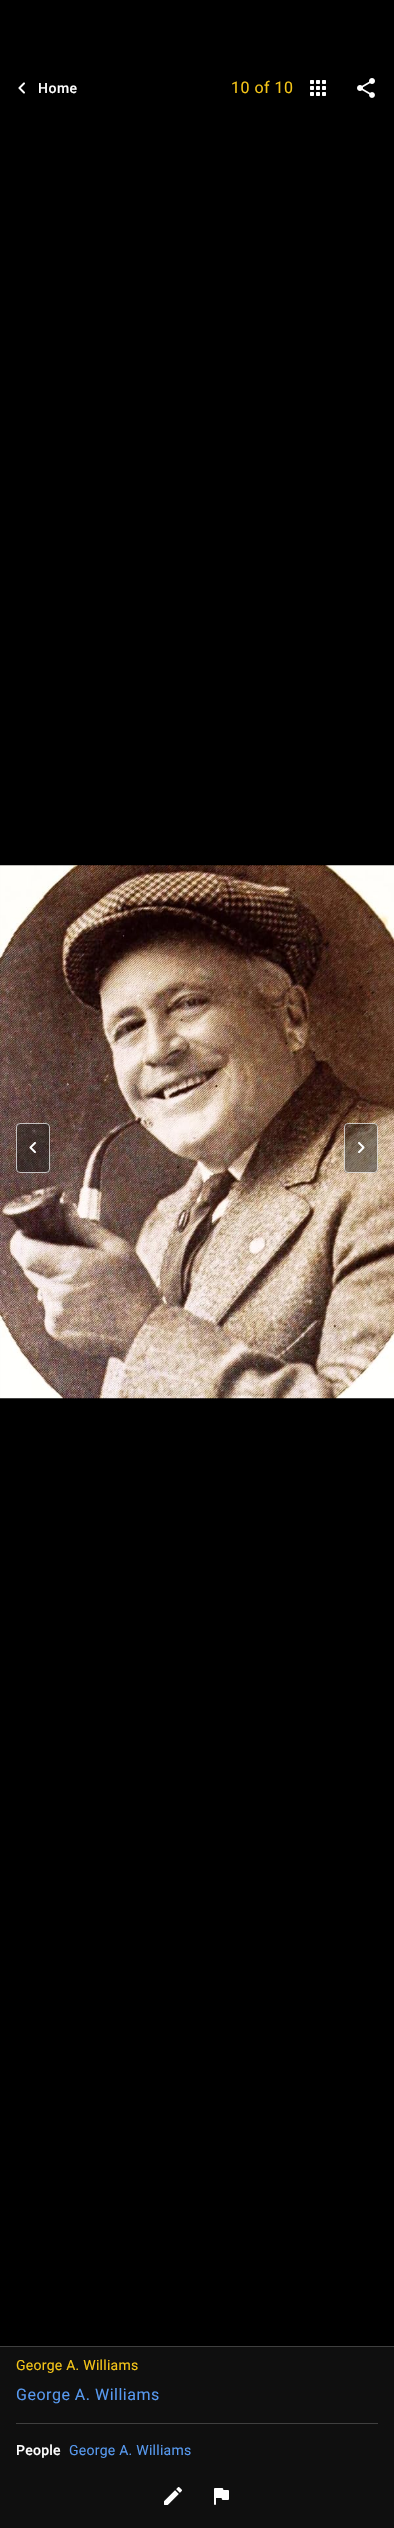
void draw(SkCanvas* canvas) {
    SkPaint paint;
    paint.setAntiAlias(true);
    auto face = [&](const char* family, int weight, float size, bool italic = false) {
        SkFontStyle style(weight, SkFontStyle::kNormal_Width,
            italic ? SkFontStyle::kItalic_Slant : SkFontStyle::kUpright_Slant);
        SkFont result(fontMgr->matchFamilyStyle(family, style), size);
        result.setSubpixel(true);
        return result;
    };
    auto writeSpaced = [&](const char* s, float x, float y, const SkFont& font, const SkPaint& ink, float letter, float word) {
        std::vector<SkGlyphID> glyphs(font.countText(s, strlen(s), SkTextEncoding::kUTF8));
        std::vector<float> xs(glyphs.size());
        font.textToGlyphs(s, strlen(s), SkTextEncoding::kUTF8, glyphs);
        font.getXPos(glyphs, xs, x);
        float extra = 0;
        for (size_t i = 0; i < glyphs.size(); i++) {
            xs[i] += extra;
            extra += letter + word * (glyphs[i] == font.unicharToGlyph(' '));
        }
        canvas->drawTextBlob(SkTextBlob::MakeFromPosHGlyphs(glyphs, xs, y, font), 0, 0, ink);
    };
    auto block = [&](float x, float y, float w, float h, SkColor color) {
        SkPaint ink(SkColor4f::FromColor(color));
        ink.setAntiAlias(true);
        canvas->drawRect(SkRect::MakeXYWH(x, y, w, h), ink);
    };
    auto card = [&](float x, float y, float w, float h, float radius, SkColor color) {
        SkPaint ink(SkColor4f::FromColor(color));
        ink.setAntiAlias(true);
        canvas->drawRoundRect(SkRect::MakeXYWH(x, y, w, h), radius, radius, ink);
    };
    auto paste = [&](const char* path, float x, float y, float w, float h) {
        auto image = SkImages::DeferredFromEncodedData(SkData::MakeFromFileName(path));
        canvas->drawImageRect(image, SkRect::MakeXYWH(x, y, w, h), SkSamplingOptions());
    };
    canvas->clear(SK_ColorBLACK);
    paste("pic1.png", 18, 82, 7, 12);
    auto kFont1 = face("Roboto", 500, 14);
    paint.setColor(SK_ColorWHITE);
    writeSpaced("Home", 38, 93, kFont1, paint, 0.5f, 0);
    auto kFont2 = face("Roboto", 400, 16);
    paint.setColor(SkColorSetRGB(245, 197, 24));
    writeSpaced("10 of 10", 231, 93, kFont2, paint, 0.5f, 0);
    paste("pic2.png", 310, 80, 16, 16);
    paste("pic3.png", 357, 78, 18, 20);
    paste("pic4.png", 0, 865, 394, 534);
    card(16, 1123, 34, 50, 4, SkColorSetARGB(115, 18, 18, 18));
    paint.setStyle(SkPaint::kStroke_Style);
    paint.setStrokeWidth(1);
    paint.setColor(SkColorSetARGB(179, 255, 255, 255));
    canvas->drawRoundRect(SkRect::MakeXYWH(16.5f, 1123.5f, 33, 49), 3.5f, 3.5f, paint);
    paste("pic5.png", 29, 1142, 7, 11);
    card(344, 1123, 34, 50, 4, SkColorSetARGB(115, 18, 18, 18));
    canvas->drawRoundRect(SkRect::MakeXYWH(344.5f, 1123.5f, 33, 49), 3.5f, 3.5f, paint);
    paste("pic6.png", 358, 1142, 7, 11);
    block(0, 2347, 394, 181, SkColorSetRGB(15, 15, 15));
    block(0, 2346, 394, 1, SkColorSetRGB(63, 63, 63));
    auto kFont3 = face("Roboto", 400, 14);
    paint.setStyle(SkPaint::kFill_Style);
    paint.setColor(SkColorSetRGB(245, 197, 24));
    writeSpaced("George A. Williams", 16, 2370, kFont3, paint, 0.25f, 0);
    paint.setColor(SkColorSetRGB(87, 153, 239));
    writeSpaced("George A. Williams", 16, 2400, kFont2, paint, 0.5f, 0);
    block(16, 2423, 362, 1, SkColorSetRGB(63, 63, 63));
    paint.setColor(SK_ColorWHITE);
    writeSpaced("People", 16, 2455, kFont1, paint, 0.25f, 0);
    paint.setColor(SkColorSetRGB(87, 153, 239));
    writeSpaced("George A. Williams", 69, 2455, kFont3, paint, 0.25f, 0);
    paste("pic7.png", 164, 2487, 18, 18);
    paste("pic8.png", 214, 2488, 15, 17);
}
